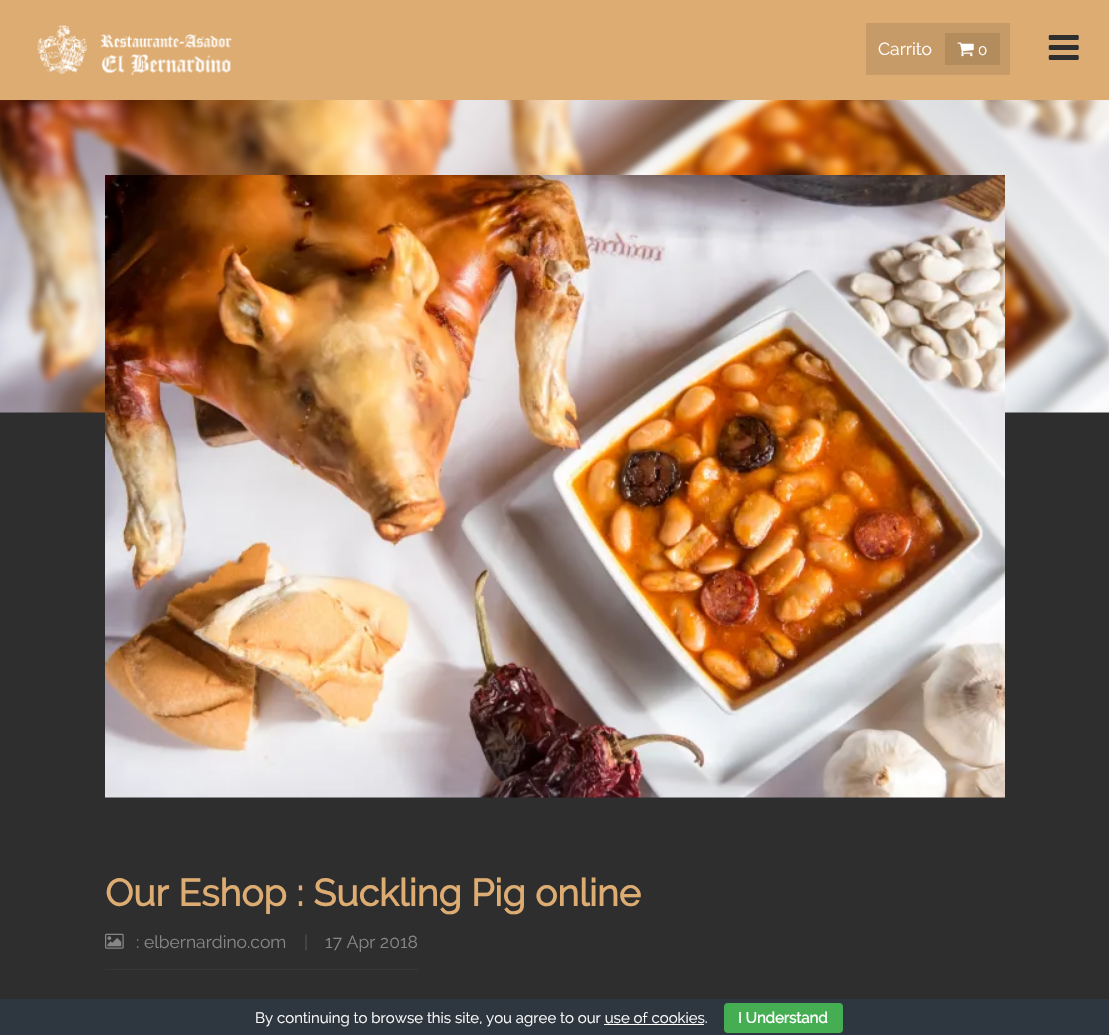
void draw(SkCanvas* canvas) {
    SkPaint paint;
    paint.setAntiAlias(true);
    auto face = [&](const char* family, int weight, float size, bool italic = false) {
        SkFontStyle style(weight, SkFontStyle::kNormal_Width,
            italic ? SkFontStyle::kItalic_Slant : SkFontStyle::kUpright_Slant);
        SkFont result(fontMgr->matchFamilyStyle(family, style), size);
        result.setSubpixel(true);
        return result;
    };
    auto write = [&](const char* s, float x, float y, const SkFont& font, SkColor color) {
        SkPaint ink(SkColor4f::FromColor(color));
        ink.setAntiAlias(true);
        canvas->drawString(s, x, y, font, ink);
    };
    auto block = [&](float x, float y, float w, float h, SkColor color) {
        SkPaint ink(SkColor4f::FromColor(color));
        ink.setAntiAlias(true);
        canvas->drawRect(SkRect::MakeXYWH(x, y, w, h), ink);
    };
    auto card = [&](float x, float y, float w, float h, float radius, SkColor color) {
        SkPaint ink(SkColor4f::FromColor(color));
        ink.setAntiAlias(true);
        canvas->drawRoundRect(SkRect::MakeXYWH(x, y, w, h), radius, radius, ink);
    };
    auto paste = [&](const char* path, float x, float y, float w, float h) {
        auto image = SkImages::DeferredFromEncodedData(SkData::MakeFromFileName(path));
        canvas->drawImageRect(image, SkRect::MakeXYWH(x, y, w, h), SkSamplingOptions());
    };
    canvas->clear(SkColorSetRGB(46, 46, 46));
    block(0, 0, 1109, 100, SkColorSetRGB(221, 172, 114));
    paste("pic1.png", 37, 25, 195, 50);
    block(866, 23, 144, 52, SkColorSetRGB(199, 155, 103));
    auto kFont1 = face("Raleway", 400, 17.5f);
    write("Carrito", 878, 55, kFont1, SK_ColorWHITE);
    block(945, 33, 55, 32, SkColorSetRGB(179, 140, 93));
    paste("pic2.png", 957, 42, 17, 15);
    auto kFont2 = face("Raleway", 400, 15);
    write("0", 978, 55, kFont2, SK_ColorWHITE);
    paste("pic3.png", 1048, 35, 31, 25);
    paste("pic4.png", 0, 100, 1109, 313);
    paste("pic5.png", 105, 175, 900, 623);
    auto kFont3 = face("Raleway", 700, 37.5f);
    write("Our Eshop : Suckling Pig online", 105, 906, kFont3, SkColorSetRGB(221, 172, 114));
    block(105, 969, 313, 1, SkColorSetRGB(55, 55, 55));
    paste("pic6.png", 105, 933, 19, 16);
    write(": elbernardino.com", 136, 948, kFont1, SkColorSetRGB(134, 134, 134));
    write("|", 304, 948, kFont1, SkColorSetRGB(81, 81, 81));
    write("17 Apr 2018", 325, 948, kFont1, SkColorSetRGB(134, 134, 134));
    block(0, 999, 1109, 36, SkColorSetRGB(46, 54, 63));
    write("By continuing to browse this site, you agree to our use of cookies.", 255, 1023, kFont2, SK_ColorWHITE);
    card(724, 1003, 119, 30, 4, SkColorSetRGB(69, 174, 82));
    auto kFont4 = face("Raleway", 700, 15);
    write("I Understand", 738, 1023, kFont4, SK_ColorWHITE);
    block(604, 1024, 100, 1, SK_ColorWHITE);
}
